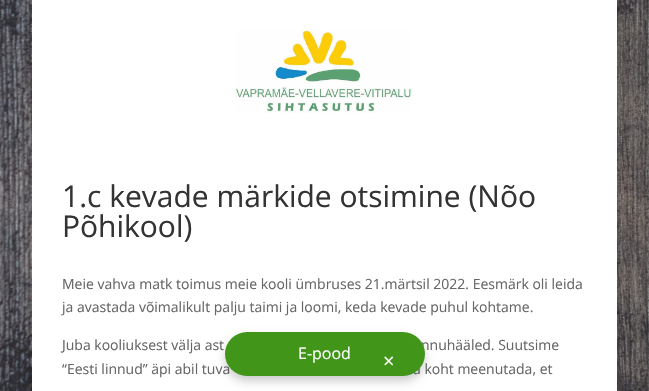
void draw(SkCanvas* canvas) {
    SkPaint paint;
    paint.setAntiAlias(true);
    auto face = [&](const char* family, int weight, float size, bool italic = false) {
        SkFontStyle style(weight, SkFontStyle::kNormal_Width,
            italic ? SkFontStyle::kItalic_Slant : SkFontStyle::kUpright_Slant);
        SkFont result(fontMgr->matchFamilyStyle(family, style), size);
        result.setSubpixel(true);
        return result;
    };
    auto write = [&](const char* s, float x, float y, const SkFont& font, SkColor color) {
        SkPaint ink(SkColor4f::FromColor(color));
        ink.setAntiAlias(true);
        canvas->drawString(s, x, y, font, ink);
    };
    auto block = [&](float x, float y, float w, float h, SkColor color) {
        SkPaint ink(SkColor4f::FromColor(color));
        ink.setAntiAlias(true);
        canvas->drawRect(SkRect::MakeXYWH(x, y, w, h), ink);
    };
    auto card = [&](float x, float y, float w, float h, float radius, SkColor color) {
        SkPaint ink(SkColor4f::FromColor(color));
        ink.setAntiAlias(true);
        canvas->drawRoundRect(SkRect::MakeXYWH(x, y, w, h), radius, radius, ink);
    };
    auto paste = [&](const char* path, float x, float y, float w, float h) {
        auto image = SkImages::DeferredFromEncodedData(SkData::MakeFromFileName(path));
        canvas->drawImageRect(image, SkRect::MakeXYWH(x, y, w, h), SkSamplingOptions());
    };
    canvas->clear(SK_ColorWHITE);
    paste("pic1.png", 0, 0, 649, 391);
    paint.setColor(SkColorSetARGB(51, 0, 0, 0));
    paint.setMaskFilter(SkMaskFilter::MakeBlur(kNormal_SkBlurStyle, 5));
    canvas->drawRect(SkRect::MakeXYWH(32, 0, 585, 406), paint);
    paint.setMaskFilter(nullptr);
    block(32, 0, 585, 391, SK_ColorWHITE);
    paste("pic2.png", 235, 30, 177, 83);
    auto kFont1 = face("Open Sans", 400, 30);
    write("1.c kevade märkide otsimine (Nõo", 62, 207, kFont1, SkColorSetRGB(51, 51, 51));
    write("Põhikool)", 62, 237, kFont1, SkColorSetRGB(51, 51, 51));
    auto kFont2 = face("Open Sans", 400, 14);
    write("Meie vahva matk toimus meie kooli ümbruses 21.märtsil 2022. Eesmärk oli leida", 62, 289, kFont2, SkColorSetRGB(102, 102, 102));
    write("ja avastada võimalikult palju taimi ja loomi, keda kevade puhul kohtame.", 62, 312, kFont2, SkColorSetRGB(102, 102, 102));
    write("Juba kooliuksest välja ast", 62, 350, kFont2, SkColorSetRGB(102, 102, 102));
    write("nnuhääled. Suutsime", 421, 350, kFont2, SkColorSetRGB(102, 102, 102));
    write("“Eesti linnud” äpi abil tuva", 62, 374, kFont2, SkColorSetRGB(102, 102, 102));
    write("a koht meenutada, et", 413, 374, kFont2, SkColorSetRGB(102, 102, 102));
    paint.setMaskFilter(SkMaskFilter::MakeBlur(kNormal_SkBlurStyle, 5));
    canvas->drawRoundRect(SkRect::MakeXYWH(225, 337, 200, 44), 22, 22, paint);
    paint.setMaskFilter(nullptr);
    card(225, 332, 200, 44, 22, SkColorSetRGB(65, 150, 25));
    auto kFont3 = face("Open Sans", 400, 16);
    write("E-pood", 298, 359, kFont3, SK_ColorWHITE);
    auto kFont4 = face("Open Sans", 400, 20);
    write("×", 383, 368, kFont4, SK_ColorWHITE);
}
